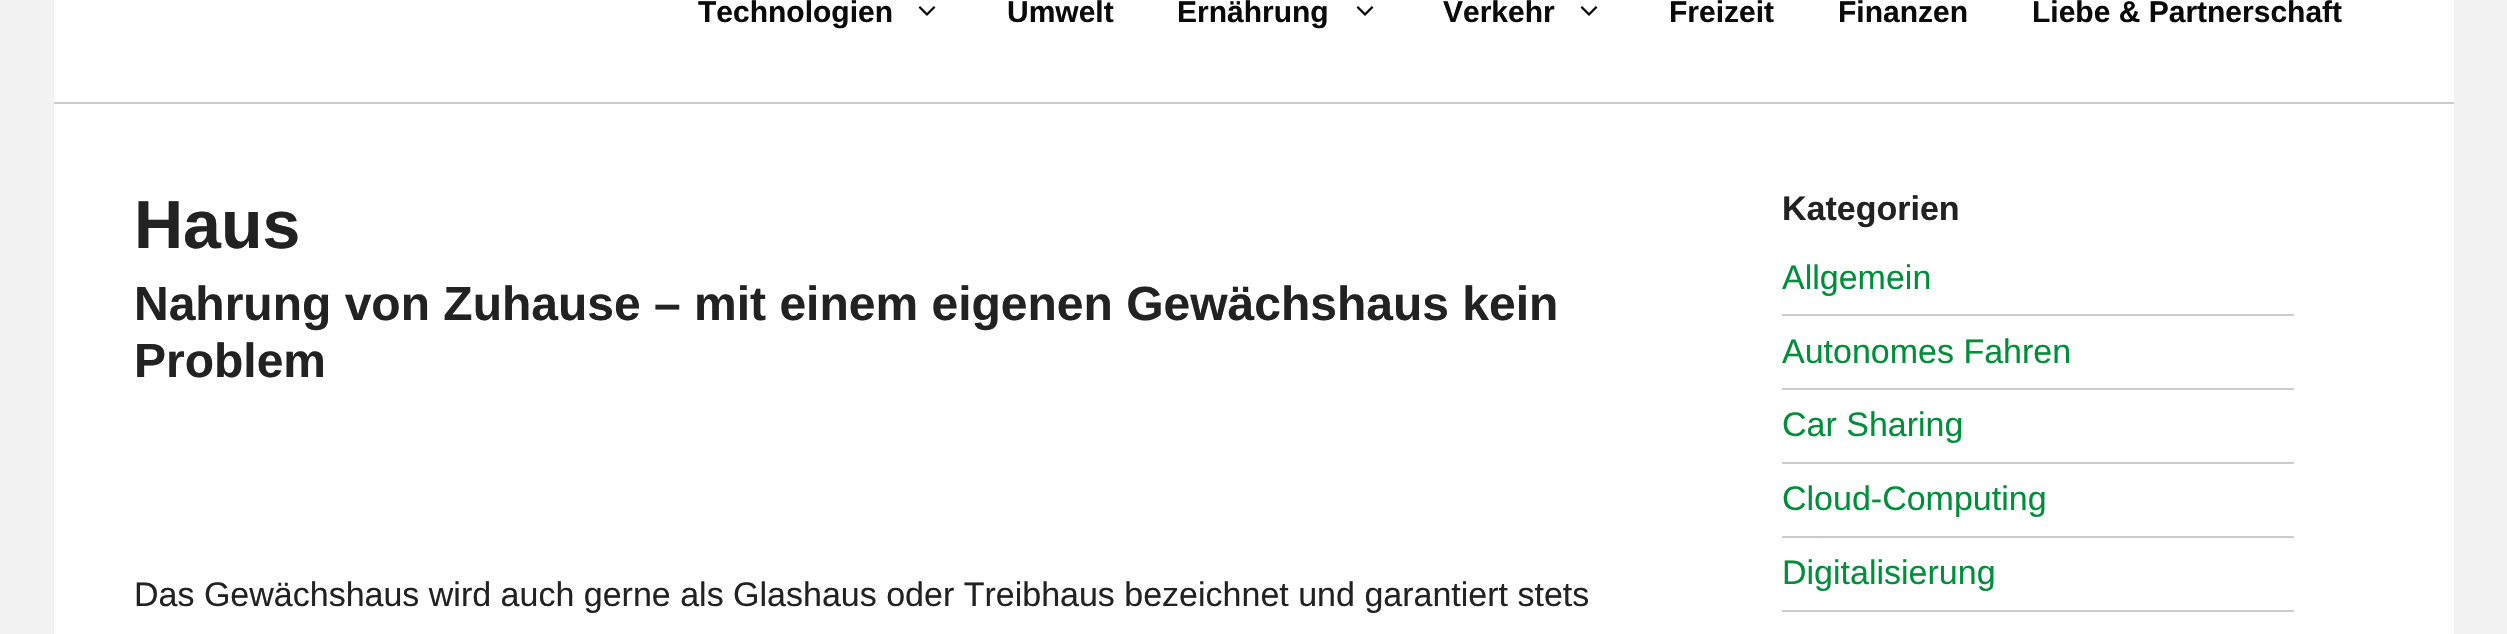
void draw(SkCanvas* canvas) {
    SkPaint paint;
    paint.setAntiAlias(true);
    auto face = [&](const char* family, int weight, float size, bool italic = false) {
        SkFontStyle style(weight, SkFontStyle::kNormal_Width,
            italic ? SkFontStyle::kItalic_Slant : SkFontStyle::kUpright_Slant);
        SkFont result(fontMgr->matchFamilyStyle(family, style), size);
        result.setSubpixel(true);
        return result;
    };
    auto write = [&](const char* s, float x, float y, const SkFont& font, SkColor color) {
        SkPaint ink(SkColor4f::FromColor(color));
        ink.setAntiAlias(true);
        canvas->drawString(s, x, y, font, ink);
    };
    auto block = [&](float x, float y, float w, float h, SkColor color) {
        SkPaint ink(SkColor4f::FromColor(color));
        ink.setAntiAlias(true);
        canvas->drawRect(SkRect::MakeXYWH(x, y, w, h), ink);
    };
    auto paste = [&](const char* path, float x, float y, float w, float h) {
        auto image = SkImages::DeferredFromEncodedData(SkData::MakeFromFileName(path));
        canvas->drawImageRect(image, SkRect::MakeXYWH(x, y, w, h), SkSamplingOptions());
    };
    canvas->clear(SkColorSetRGB(242, 242, 242));
    block(54, 0, 2400, 102, SK_ColorWHITE);
    block(54, 102, 2400, 2, SkColorSetRGB(204, 204, 204));
    auto kFont1 = face("Liberation Sans", 700, 30);
    write("Technologien", 698, 22, kFont1, SkColorSetRGB(10, 10, 10));
    paste("pic1.png", 918, 6, 18, 10);
    write("Umwelt", 1007, 22, kFont1, SkColorSetRGB(10, 10, 10));
    write("Ernährung", 1177, 22, kFont1, SkColorSetRGB(10, 10, 10));
    paste("pic1.png", 1356, 6, 18, 10);
    write("Verkehr", 1443, 22, kFont1, SkColorSetRGB(10, 10, 10));
    paste("pic1.png", 1580, 6, 18, 10);
    write("Freizeit", 1669, 22, kFont1, SkColorSetRGB(10, 10, 10));
    write("Finanzen", 1838, 22, kFont1, SkColorSetRGB(10, 10, 10));
    write("Liebe & Partnerschaft", 2032, 22, kFont1, SkColorSetRGB(10, 10, 10));
    block(54, 104, 2400, 530, SK_ColorWHITE);
    auto kFont2 = face("Liberation Sans", 700, 68);
    write("Haus", 134, 248, kFont2, SkColorSetRGB(34, 34, 34));
    auto kFont3 = face("Liberation Sans", 700, 48);
    write("Nahrung von Zuhause – mit einem eigenen Gewächshaus kein", 134, 320, kFont3, SkColorSetRGB(34, 34, 34));
    write("Problem", 134, 377, kFont3, SkColorSetRGB(34, 34, 34));
    auto kFont4 = face("Liberation Sans", 400, 34);
    write("Das Gewächshaus wird auch gerne als Glashaus oder Treibhaus bezeichnet und garantiert stets", 134, 606, kFont4, SkColorSetRGB(34, 34, 34));
    auto kFont5 = face("Liberation Sans", 700, 34);
    write("Kategorien", 1782, 220, kFont5, SkColorSetRGB(34, 34, 34));
    write("Allgemein", 1782, 289, kFont4, SkColorSetRGB(0, 142, 59));
    block(1782, 314, 512, 2, SkColorSetRGB(204, 204, 204));
    write("Autonomes Fahren", 1782, 363, kFont4, SkColorSetRGB(0, 142, 59));
    block(1782, 388, 512, 2, SkColorSetRGB(204, 204, 204));
    write("Car Sharing", 1782, 436, kFont4, SkColorSetRGB(0, 142, 59));
    block(1782, 462, 512, 2, SkColorSetRGB(204, 204, 204));
    write("Cloud-Computing", 1782, 510, kFont4, SkColorSetRGB(0, 142, 59));
    block(1782, 536, 512, 2, SkColorSetRGB(204, 204, 204));
    write("Digitalisierung", 1782, 584, kFont4, SkColorSetRGB(0, 142, 59));
    block(1782, 610, 512, 2, SkColorSetRGB(204, 204, 204));
}
